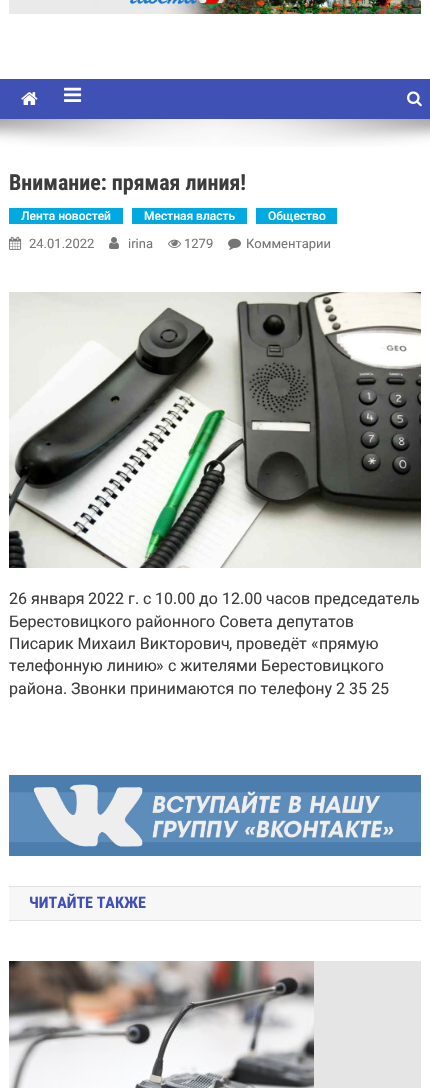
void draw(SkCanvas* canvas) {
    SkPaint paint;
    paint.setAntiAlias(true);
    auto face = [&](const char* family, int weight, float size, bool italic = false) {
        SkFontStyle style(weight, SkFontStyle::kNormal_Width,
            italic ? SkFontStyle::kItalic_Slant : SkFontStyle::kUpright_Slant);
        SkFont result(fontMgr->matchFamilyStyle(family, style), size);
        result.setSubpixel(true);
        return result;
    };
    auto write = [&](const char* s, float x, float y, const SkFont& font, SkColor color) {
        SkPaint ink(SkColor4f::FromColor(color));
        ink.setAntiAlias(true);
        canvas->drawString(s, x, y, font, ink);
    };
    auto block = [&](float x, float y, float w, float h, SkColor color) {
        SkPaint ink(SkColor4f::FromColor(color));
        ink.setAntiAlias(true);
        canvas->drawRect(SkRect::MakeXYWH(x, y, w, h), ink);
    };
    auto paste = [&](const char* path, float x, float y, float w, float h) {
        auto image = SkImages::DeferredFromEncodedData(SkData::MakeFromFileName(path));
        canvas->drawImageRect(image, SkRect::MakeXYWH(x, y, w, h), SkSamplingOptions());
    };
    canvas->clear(SK_ColorWHITE);
    paste("pic1.png", 9, 0, 412, 14);
    block(0, 79, 430, 40, SkColorSetRGB(63, 81, 181));
    paste("pic2.png", 21, 92, 17, 13);
    paste("pic3.png", 64, 87, 18, 15);
    paste("pic4.png", 407, 91, 15, 16);
    paste("pic5.png", 0, 119, 430, 28);
    auto kFont1 = face("Roboto Condensed", 700, 22);
    write("Внимание: прямая линия!", 9, 190, kFont1, SkColorSetRGB(61, 61, 61));
    block(9, 208, 114, 16, SkColorSetRGB(0, 169, 224));
    auto kFont2 = face("Roboto", 500, 12);
    write("Лента новостей", 21, 220, kFont2, SK_ColorWHITE);
    block(132, 208, 115, 16, SkColorSetRGB(0, 169, 224));
    write("Местная власть", 144, 220, kFont2, SK_ColorWHITE);
    block(256, 208, 81, 16, SkColorSetRGB(0, 169, 224));
    write("Общество", 268, 220, kFont2, SK_ColorWHITE);
    paste("pic6.png", 9, 236, 13, 14);
    auto kFont3 = face("Roboto", 400, 13);
    write("24.01.2022", 29, 248, kFont3, SkColorSetRGB(118, 118, 118));
    paste("pic7.png", 109, 237, 10, 12);
    write("irina", 128, 248, kFont3, SkColorSetRGB(118, 118, 118));
    paste("pic8.png", 168, 239, 13, 9);
    write("1279", 184, 248, kFont3, SkColorSetRGB(118, 118, 118));
    paste("pic9.png", 228, 238, 13, 12);
    auto kFont4 = face("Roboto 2", 400, 13);
    write("Комментарии", 246, 248, kFont4, SkColorSetRGB(118, 118, 118));
    paste("pic10.png", 9, 292, 412, 276);
    auto kFont5 = face("Roboto", 400, 16);
    write("26", 9, 604, kFont5, SkColorSetRGB(61, 61, 61));
    auto kFont6 = face("Roboto 2", 400, 16);
    write("января", 31, 604, kFont6, SkColorSetRGB(61, 61, 61));
    write("2022", 88, 604, kFont5, SkColorSetRGB(61, 61, 61));
    write("г", 128, 604, kFont6, SkColorSetRGB(61, 61, 61));
    write(".", 135, 604, kFont5, SkColorSetRGB(61, 61, 61));
    write("с", 143, 604, kFont6, SkColorSetRGB(61, 61, 61));
    write("10.00", 155, 604, kFont5, SkColorSetRGB(61, 61, 61));
    write("до", 199, 604, kFont6, SkColorSetRGB(61, 61, 61));
    write("12.00", 222, 604, kFont5, SkColorSetRGB(61, 61, 61));
    write("часов председатель", 266, 604, kFont6, SkColorSetRGB(61, 61, 61));
    write("Берестовицкого районного Совета депутатов", 9, 627, kFont6, SkColorSetRGB(61, 61, 61));
    write("Писарик Михаил Викторович", 9, 649, kFont6, SkColorSetRGB(61, 61, 61));
    write("проведёт", 236, 649, kFont6, SkColorSetRGB(61, 61, 61));
    write("«", 311, 649, kFont5, SkColorSetRGB(61, 61, 61));
    write("прямую", 319, 649, kFont6, SkColorSetRGB(61, 61, 61));
    write(",", 229, 649, kFont5, SkColorSetRGB(61, 61, 61));
    write("телефонную линию", 9, 671, kFont6, SkColorSetRGB(61, 61, 61));
    write("»", 156, 671, kFont5, SkColorSetRGB(61, 61, 61));
    write("с жителями Берестовицкого", 168, 671, kFont6, SkColorSetRGB(61, 61, 61));
    write("района", 9, 694, kFont6, SkColorSetRGB(61, 61, 61));
    write(".", 63, 694, kFont5, SkColorSetRGB(61, 61, 61));
    write("Звонки принимаются по телефону", 71, 694, kFont6, SkColorSetRGB(61, 61, 61));
    write("2 35 25", 336, 694, kFont5, SkColorSetRGB(61, 61, 61));
    paste("pic11.png", 9, 775, 412, 81);
    block(9, 887, 412, 33, SkColorSetRGB(247, 247, 247));
    block(9, 886, 412, 1, SkColorSetRGB(225, 225, 225));
    block(9, 920, 412, 1, SkColorSetRGB(225, 225, 225));
    auto kFont7 = face("Roboto Condensed", 700, 16);
    write("ЧИТАЙТЕ ТАКЖЕ", 29, 908, kFont7, SkColorSetRGB(63, 81, 181));
    block(314, 961, 107, 127, SkColorSetRGB(229, 229, 229));
    paste("pic12.png", 9, 961, 305, 127);
}
